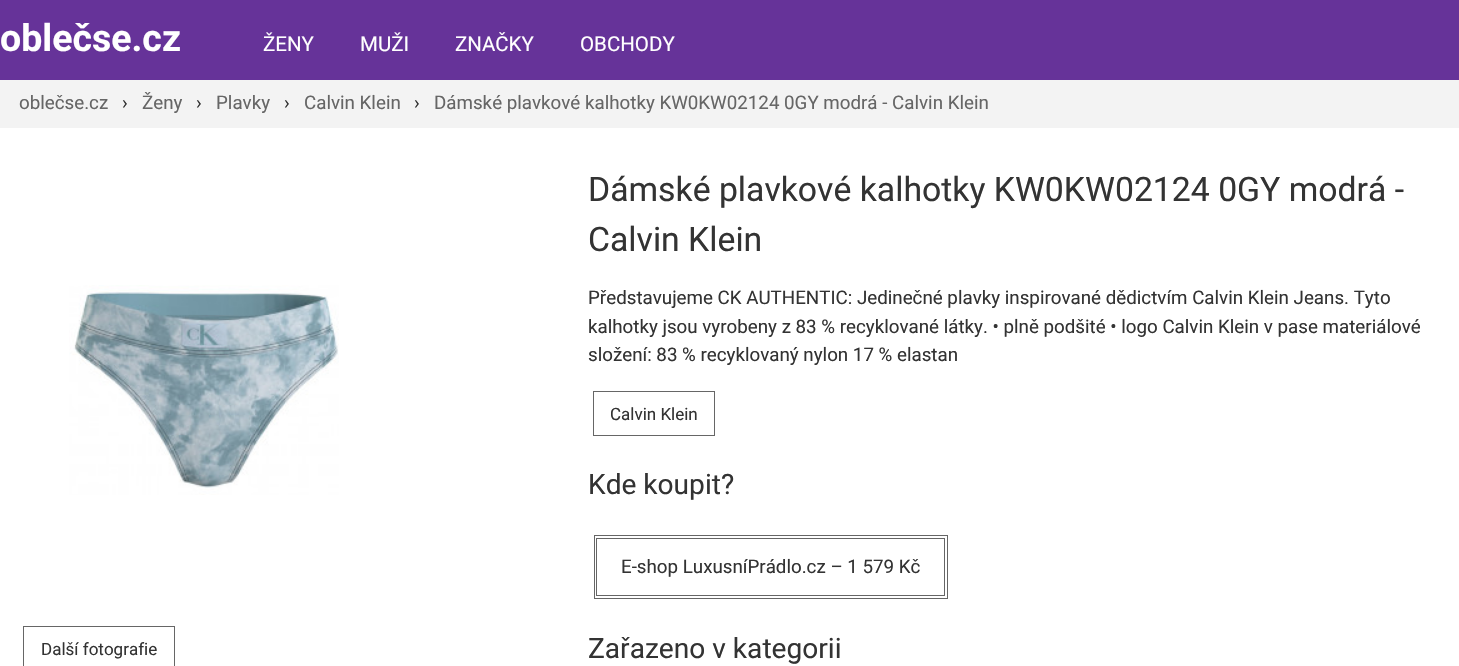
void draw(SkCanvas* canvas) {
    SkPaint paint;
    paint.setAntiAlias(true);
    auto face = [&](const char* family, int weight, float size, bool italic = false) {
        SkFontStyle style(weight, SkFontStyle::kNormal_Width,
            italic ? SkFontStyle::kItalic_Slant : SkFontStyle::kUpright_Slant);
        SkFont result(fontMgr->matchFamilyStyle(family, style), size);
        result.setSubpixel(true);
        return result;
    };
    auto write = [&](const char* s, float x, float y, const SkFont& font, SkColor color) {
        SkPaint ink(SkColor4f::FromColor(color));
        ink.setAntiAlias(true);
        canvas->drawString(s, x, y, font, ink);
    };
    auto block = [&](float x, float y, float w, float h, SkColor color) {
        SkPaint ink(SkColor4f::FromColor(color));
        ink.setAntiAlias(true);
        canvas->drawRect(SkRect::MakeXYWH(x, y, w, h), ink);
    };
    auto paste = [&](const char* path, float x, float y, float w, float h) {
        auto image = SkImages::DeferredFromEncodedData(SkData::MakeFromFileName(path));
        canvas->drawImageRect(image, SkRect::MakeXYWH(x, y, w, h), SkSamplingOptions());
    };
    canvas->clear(SK_ColorWHITE);
    block(0, 0, 1459, 80, SkColorSetRGB(102, 51, 153));
    auto kFont1 = face("Roboto", 700, 37.5f);
    write("oblečse.cz", 0, 51, kFont1, SK_ColorWHITE);
    auto kFont2 = face("Roboto", 400, 20.5f);
    write("ŽENY", 263, 51, kFont2, SK_ColorWHITE);
    write("MUŽI", 360, 51, kFont2, SK_ColorWHITE);
    write("ZNAČKY", 455, 51, kFont2, SK_ColorWHITE);
    write("OBCHODY", 580, 51, kFont2, SK_ColorWHITE);
    block(0, 80, 1459, 48, SkColorSetRGB(243, 243, 243));
    auto kFont3 = face("Roboto", 400, 18.75f);
    write("oblečse.cz", 19, 109, kFont3, SkColorSetRGB(102, 102, 102));
    write("›", 122, 109, kFont3, SkColorSetRGB(51, 51, 51));
    write("Ženy", 142, 109, kFont3, SkColorSetRGB(102, 102, 102));
    write("›", 196, 109, kFont3, SkColorSetRGB(51, 51, 51));
    write("Plavky", 216, 109, kFont3, SkColorSetRGB(102, 102, 102));
    write("›", 284, 109, kFont3, SkColorSetRGB(51, 51, 51));
    write("Calvin Klein", 304, 109, kFont3, SkColorSetRGB(102, 102, 102));
    write("›", 414, 109, kFont3, SkColorSetRGB(51, 51, 51));
    write("Dámské plavkové kalhotky KW0KW02124 0GY modrá - Calvin Klein", 434, 109, kFont3, SkColorSetRGB(102, 102, 102));
    paste("pic1.png", 69, 285, 270, 210);
    paint.setStyle(SkPaint::kStroke_Style);
    paint.setStrokeWidth(1);
    paint.setColor(SkColorSetRGB(102, 102, 102));
    canvas->drawRect(SkRect::MakeXYWH(23.5f, 626.5f, 151, 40), paint);
    auto kFont4 = face("Roboto", 400, 17);
    write("Další fotografie", 41, 655, kFont4, SkColorSetRGB(51, 51, 51));
    auto kFont5 = face("Roboto", 400, 33.75f);
    write("Dámské plavkové kalhotky KW0KW02124 0GY modrá -", 588, 201, kFont5, SkColorSetRGB(51, 51, 51));
    write("Calvin Klein", 588, 251, kFont5, SkColorSetRGB(51, 51, 51));
    write("Představujeme CK AUTHENTIC: Jedinečné plavky inspirované dědictvím Calvin Klein Jeans. Tyto", 588, 304, kFont3, SkColorSetRGB(51, 51, 51));
    write("kalhotky jsou vyrobeny z 83 % recyklované látky. • plně podšité • logo Calvin Klein v pase materiálové", 588, 333, kFont3, SkColorSetRGB(51, 51, 51));
    write("složení: 83 % recyklovaný nylon 17 % elastan", 588, 361, kFont3, SkColorSetRGB(51, 51, 51));
    canvas->drawRect(SkRect::MakeXYWH(593.5f, 391.5f, 121, 44), paint);
    write("Calvin Klein", 610, 420, kFont4, SkColorSetRGB(51, 51, 51));
    auto kFont6 = face("Roboto", 400, 28.1f);
    write("Kde koupit?", 588, 494, kFont6, SkColorSetRGB(51, 51, 51));
    canvas->drawRect(SkRect::MakeXYWH(594.5f, 535.5f, 353, 63), paint);
    canvas->drawRect(SkRect::MakeXYWH(596.5f, 538.5f, 348, 57), paint);
    write("E-shop LuxusníPrádlo.cz – 1 579 Kč", 621, 573, kFont3, SkColorSetRGB(51, 51, 51));
    write("Zařazeno v kategorii", 588, 658, kFont6, SkColorSetRGB(51, 51, 51));
}
